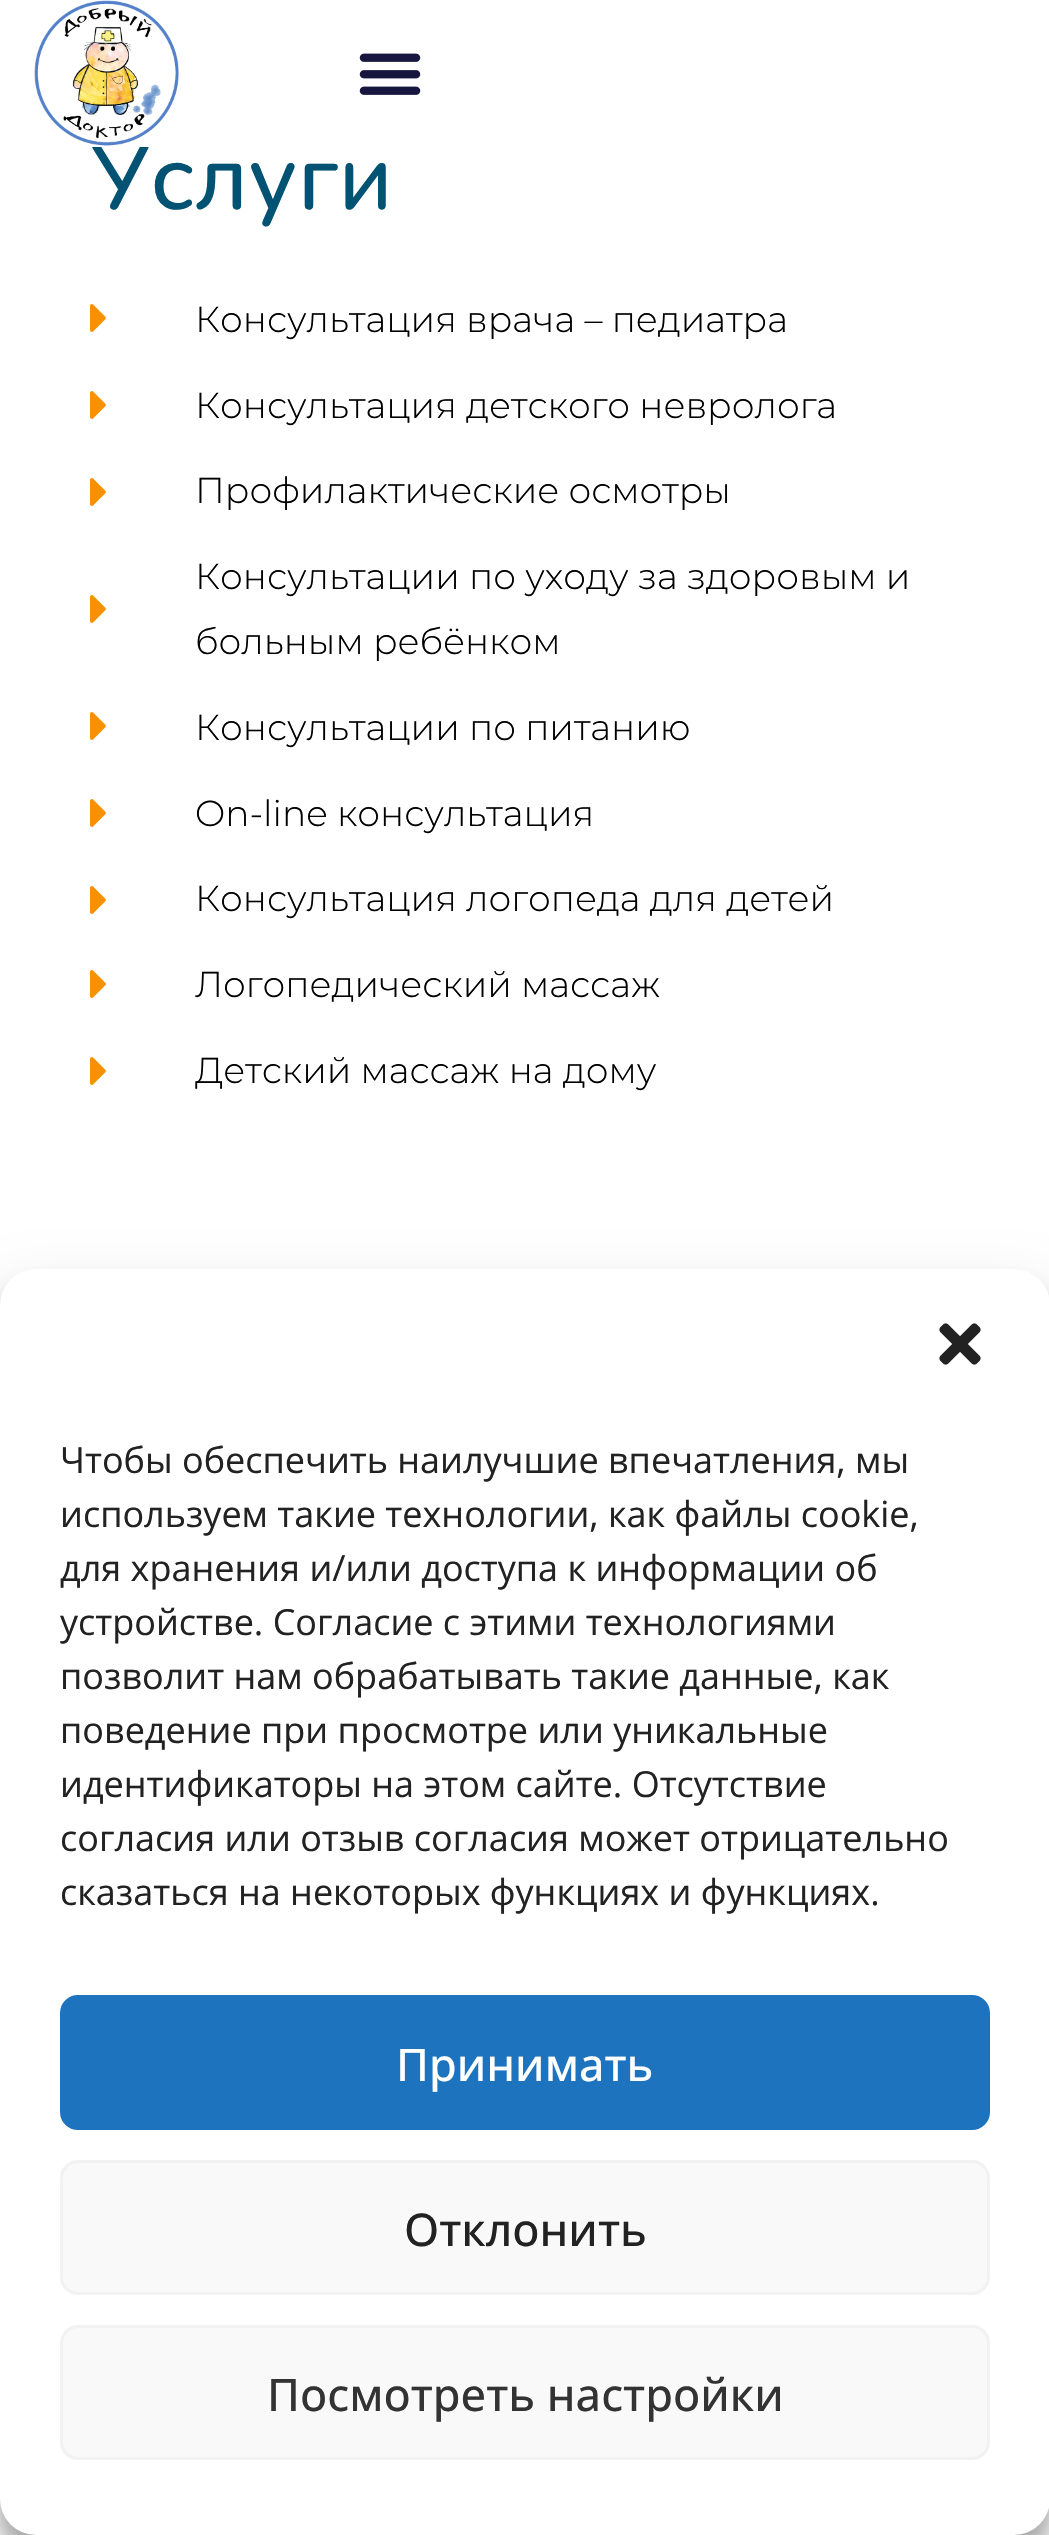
void draw(SkCanvas* canvas) {
    SkPaint paint;
    paint.setAntiAlias(true);
    auto face = [&](const char* family, int weight, float size, bool italic = false) {
        SkFontStyle style(weight, SkFontStyle::kNormal_Width,
            italic ? SkFontStyle::kItalic_Slant : SkFontStyle::kUpright_Slant);
        SkFont result(fontMgr->matchFamilyStyle(family, style), size);
        result.setSubpixel(true);
        return result;
    };
    auto write = [&](const char* s, float x, float y, const SkFont& font, SkColor color) {
        SkPaint ink(SkColor4f::FromColor(color));
        ink.setAntiAlias(true);
        canvas->drawString(s, x, y, font, ink);
    };
    auto block = [&](float x, float y, float w, float h, SkColor color) {
        SkPaint ink(SkColor4f::FromColor(color));
        ink.setAntiAlias(true);
        canvas->drawRect(SkRect::MakeXYWH(x, y, w, h), ink);
    };
    auto card = [&](float x, float y, float w, float h, float radius, SkColor color) {
        SkPaint ink(SkColor4f::FromColor(color));
        ink.setAntiAlias(true);
        canvas->drawRoundRect(SkRect::MakeXYWH(x, y, w, h), radius, radius, ink);
    };
    auto paste = [&](const char* path, float x, float y, float w, float h) {
        auto image = SkImages::DeferredFromEncodedData(SkData::MakeFromFileName(path));
        canvas->drawImageRect(image, SkRect::MakeXYWH(x, y, w, h), SkSamplingOptions());
    };
    canvas->clear(SK_ColorWHITE);
    auto kFont1 = face("Nunito", 500, 93);
    write("Услуги", 90, 209, kFont1, SkColorSetRGB(2, 82, 115));
    block(92, 142, 57, 5, SK_ColorWHITE);
    paste("pic1.png", 34, 0, 145, 146);
    paste("pic2.png", 359, 53, 62, 42);
    paste("pic3.png", 90, 304, 16, 28);
    auto kFont2 = face("Montserrat", 300, 36);
    write("Консультация врача – педиатра", 195, 332, kFont2, SK_ColorBLACK);
    paste("pic3.png", 90, 391, 16, 28);
    write("Консультация детского невролога", 195, 418, kFont2, SK_ColorBLACK);
    paste("pic3.png", 90, 478, 16, 28);
    write("Профилактические осмотры", 195, 503, kFont2, SK_ColorBLACK);
    paste("pic3.png", 90, 595, 16, 28);
    write("Консультации по уходу за здоровым и", 195, 589, kFont2, SK_ColorBLACK);
    write("больным ребёнком", 195, 654, kFont2, SK_ColorBLACK);
    paste("pic3.png", 90, 712, 16, 28);
    write("Консультации по питанию", 195, 740, kFont2, SK_ColorBLACK);
    paste("pic3.png", 90, 799, 16, 28);
    write("On-line консультация", 195, 826, kFont2, SK_ColorBLACK);
    paste("pic3.png", 90, 886, 16, 28);
    write("Консультация логопеда для детей", 195, 911, kFont2, SK_ColorBLACK);
    paste("pic3.png", 90, 970, 16, 28);
    write("Логопедический массаж", 195, 997, kFont2, SK_ColorBLACK);
    paste("pic3.png", 90, 1057, 16, 28);
    write("Детский массаж на дому", 195, 1083, kFont2, SK_ColorBLACK);
    paint.setColor(SkColorSetARGB(59, 0, 0, 0));
    paint.setMaskFilter(SkMaskFilter::MakeBlur(kNormal_SkBlurStyle, 9));
    canvas->drawRoundRect(SkRect::MakeXYWH(0, 1287, 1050, 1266), 36, 36, paint);
    paint.setMaskFilter(nullptr);
    paint.setColor(SkColorSetARGB(48, 0, 0, 0));
    paint.setMaskFilter(SkMaskFilter::MakeBlur(kNormal_SkBlurStyle, 30));
    canvas->drawRoundRect(SkRect::MakeXYWH(0, 1299, 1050, 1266), 36, 36, paint);
    paint.setMaskFilter(nullptr);
    card(0, 1269, 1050, 1266, 36, SK_ColorWHITE);
    paste("pic4.png", 939, 1323, 42, 42);
    auto kFont3 = face("Open Sans", 400, 36);
    write("Чтобы обеспечить наилучшие впечатления, мы", 60, 1473, kFont3, SkColorSetRGB(34, 34, 34));
    write("используем такие технологии, как файлы cookie,", 60, 1527, kFont3, SkColorSetRGB(34, 34, 34));
    write("для хранения и/или доступа к информации об", 60, 1581, kFont3, SkColorSetRGB(34, 34, 34));
    write("устройстве. Согласие с этими технологиями", 60, 1635, kFont3, SkColorSetRGB(34, 34, 34));
    write("позволит нам обрабатывать такие данные, как", 60, 1689, kFont3, SkColorSetRGB(34, 34, 34));
    write("поведение при просмотре или уникальные", 60, 1743, kFont3, SkColorSetRGB(34, 34, 34));
    write("идентификаторы на этом сайте. Отсутствие", 60, 1797, kFont3, SkColorSetRGB(34, 34, 34));
    write("согласия или отзыв согласия может отрицательно", 60, 1851, kFont3, SkColorSetRGB(34, 34, 34));
    write("сказаться на некоторых функциях и функциях.", 60, 1905, kFont3, SkColorSetRGB(34, 34, 34));
    paint.setColor(SkColorSetRGB(30, 115, 190));
    canvas->drawRoundRect(SkRect::MakeXYWH(61.5f, 1996.5f, 927, 132), 16.5f, 16.5f, paint);
    paint.setStyle(SkPaint::kStroke_Style);
    paint.setStrokeWidth(3);
    canvas->drawRoundRect(SkRect::MakeXYWH(61.5f, 1996.5f, 927, 132), 16.5f, 16.5f, paint);
    auto kFont4 = face("Open Sans", 500, 45);
    write("Принимать", 396, 2081, kFont4, SK_ColorWHITE);
    paint.setStyle(SkPaint::kFill_Style);
    paint.setColor(SkColorSetRGB(249, 249, 249));
    canvas->drawRoundRect(SkRect::MakeXYWH(61.5f, 2161.5f, 927, 132), 16.5f, 16.5f, paint);
    paint.setStyle(SkPaint::kStroke_Style);
    paint.setColor(SkColorSetRGB(242, 242, 242));
    canvas->drawRoundRect(SkRect::MakeXYWH(61.5f, 2161.5f, 927, 132), 16.5f, 16.5f, paint);
    write("Отклонить", 404, 2246, kFont4, SkColorSetRGB(34, 34, 34));
    paint.setStyle(SkPaint::kFill_Style);
    paint.setColor(SkColorSetRGB(249, 249, 249));
    canvas->drawRoundRect(SkRect::MakeXYWH(61.5f, 2326.5f, 927, 132), 16.5f, 16.5f, paint);
    paint.setStyle(SkPaint::kStroke_Style);
    paint.setColor(SkColorSetRGB(242, 242, 242));
    canvas->drawRoundRect(SkRect::MakeXYWH(61.5f, 2326.5f, 927, 132), 16.5f, 16.5f, paint);
    write("Посмотреть настройки", 267, 2411, kFont4, SkColorSetRGB(51, 51, 51));
}
